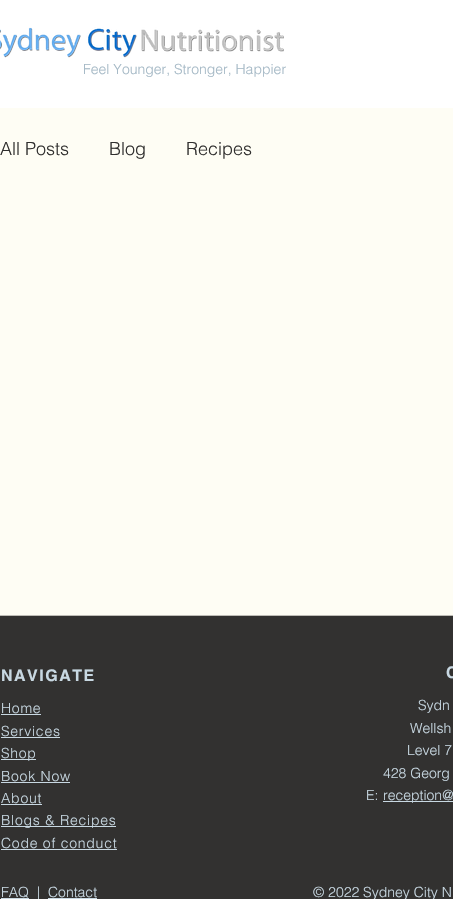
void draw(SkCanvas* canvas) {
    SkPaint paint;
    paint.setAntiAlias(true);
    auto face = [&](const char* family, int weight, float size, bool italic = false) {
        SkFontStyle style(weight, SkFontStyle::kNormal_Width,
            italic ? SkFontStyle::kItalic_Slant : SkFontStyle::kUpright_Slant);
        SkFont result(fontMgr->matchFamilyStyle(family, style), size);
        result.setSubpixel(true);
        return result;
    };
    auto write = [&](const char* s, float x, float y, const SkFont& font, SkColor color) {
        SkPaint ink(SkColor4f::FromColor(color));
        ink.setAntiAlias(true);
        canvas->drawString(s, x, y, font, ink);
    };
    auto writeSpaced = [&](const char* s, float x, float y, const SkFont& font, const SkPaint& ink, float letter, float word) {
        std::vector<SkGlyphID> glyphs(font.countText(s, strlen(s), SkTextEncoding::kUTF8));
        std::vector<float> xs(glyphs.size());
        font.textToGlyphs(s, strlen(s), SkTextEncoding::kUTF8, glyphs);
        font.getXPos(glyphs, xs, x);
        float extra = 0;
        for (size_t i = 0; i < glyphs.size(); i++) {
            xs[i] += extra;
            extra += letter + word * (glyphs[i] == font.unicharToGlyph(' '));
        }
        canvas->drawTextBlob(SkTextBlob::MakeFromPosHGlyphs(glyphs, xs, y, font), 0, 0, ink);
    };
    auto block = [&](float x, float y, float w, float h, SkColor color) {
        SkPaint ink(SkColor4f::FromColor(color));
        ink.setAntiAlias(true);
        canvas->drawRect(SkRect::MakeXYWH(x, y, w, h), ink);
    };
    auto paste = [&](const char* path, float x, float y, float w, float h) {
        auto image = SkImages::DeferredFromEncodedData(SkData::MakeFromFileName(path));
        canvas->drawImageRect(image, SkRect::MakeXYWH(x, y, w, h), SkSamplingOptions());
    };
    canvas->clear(SK_ColorWHITE);
    paste("pic1.png", 0, 27, 284, 31);
    auto kFont1 = face("helvetica", 300, 14);
    write("Feel Younger, Stronger, Happier", 83, 74, kFont1, SkColorSetRGB(164, 184, 197));
    block(0, 108, 453, 507, SkColorSetRGB(254, 253, 244));
    auto kFont2 = face("helvetica", 300, 18);
    write("All Posts", 0, 155, kFont2, SkColorSetRGB(48, 47, 46));
    write("Blog", 109, 155, kFont2, SkColorSetRGB(48, 47, 46));
    write("Recipes", 186, 155, kFont2, SkColorSetRGB(48, 47, 46));
    block(0, 616, 453, 283, SkColorSetRGB(50, 49, 48));
    block(0, 615, 453, 1, SkColorSetRGB(190, 188, 182));
    auto kFont3 = face("helvetica", 700, 16);
    paint.setColor(SkColorSetRGB(200, 216, 226));
    writeSpaced("NAVIGATE", 1, 681, kFont3, paint, 1.5f, 0);
    writeSpaced("C", 446, 678, kFont3, paint, 1.5f, 0);
    writeSpaced("Home", 1, 713, kFont1, paint, 0.75f, 0);
    block(1, 714, 40, 1, SkColorSetRGB(200, 216, 226));
    writeSpaced("Services", 1, 736, kFont1, paint, 0.75f, 0);
    block(1, 737, 59, 1, SkColorSetRGB(200, 216, 226));
    block(1, 759, 35, 1, SkColorSetRGB(200, 216, 226));
    writeSpaced("Shop", 1, 758, kFont1, paint, 0.75f, 0);
    writeSpaced("Book Now", 1, 781, kFont1, paint, 0.75f, 0);
    block(1, 782, 69, 1, SkColorSetRGB(200, 216, 226));
    writeSpaced("About", 1, 803, kFont1, paint, 0.75f, 0);
    block(1, 804, 41, 1, SkColorSetRGB(200, 216, 226));
    block(1, 826, 115, 1, SkColorSetRGB(200, 216, 226));
    writeSpaced("Blogs & Recipes", 1, 825, kFont1, paint, 0.75f, 0);
    writeSpaced("Code of conduct", 1, 848, kFont1, paint, 0.75f, 0);
    block(1, 849, 116, 1, SkColorSetRGB(200, 216, 226));
    write("Sydn", 418, 710, kFont1, SkColorSetRGB(200, 216, 226));
    write("Wellsh", 410, 733, kFont1, SkColorSetRGB(200, 216, 226));
    write("Level 7", 407, 755, kFont1, SkColorSetRGB(200, 216, 226));
    write("428 Georg", 383, 778, kFont1, SkColorSetRGB(200, 216, 226));
    write("E:", 366, 800, kFont1, SkColorSetRGB(200, 216, 226));
    block(383, 801, 70, 1, SkColorSetRGB(200, 216, 226));
    write("reception@", 383, 800, kFont1, SkColorSetRGB(200, 216, 226));
    write("FAQ", 1, 897, kFont1, SkColorSetRGB(200, 216, 226));
    block(1, 898, 28, 1, SkColorSetRGB(200, 216, 226));
    write("|", 37, 897, kFont1, SkColorSetRGB(200, 216, 226));
    write("Contact", 48, 897, kFont1, SkColorSetRGB(200, 216, 226));
    block(48, 898, 49, 1, SkColorSetRGB(200, 216, 226));
    write("© 2022 Sydney City N", 313, 897, kFont1, SkColorSetRGB(200, 216, 226));
}
